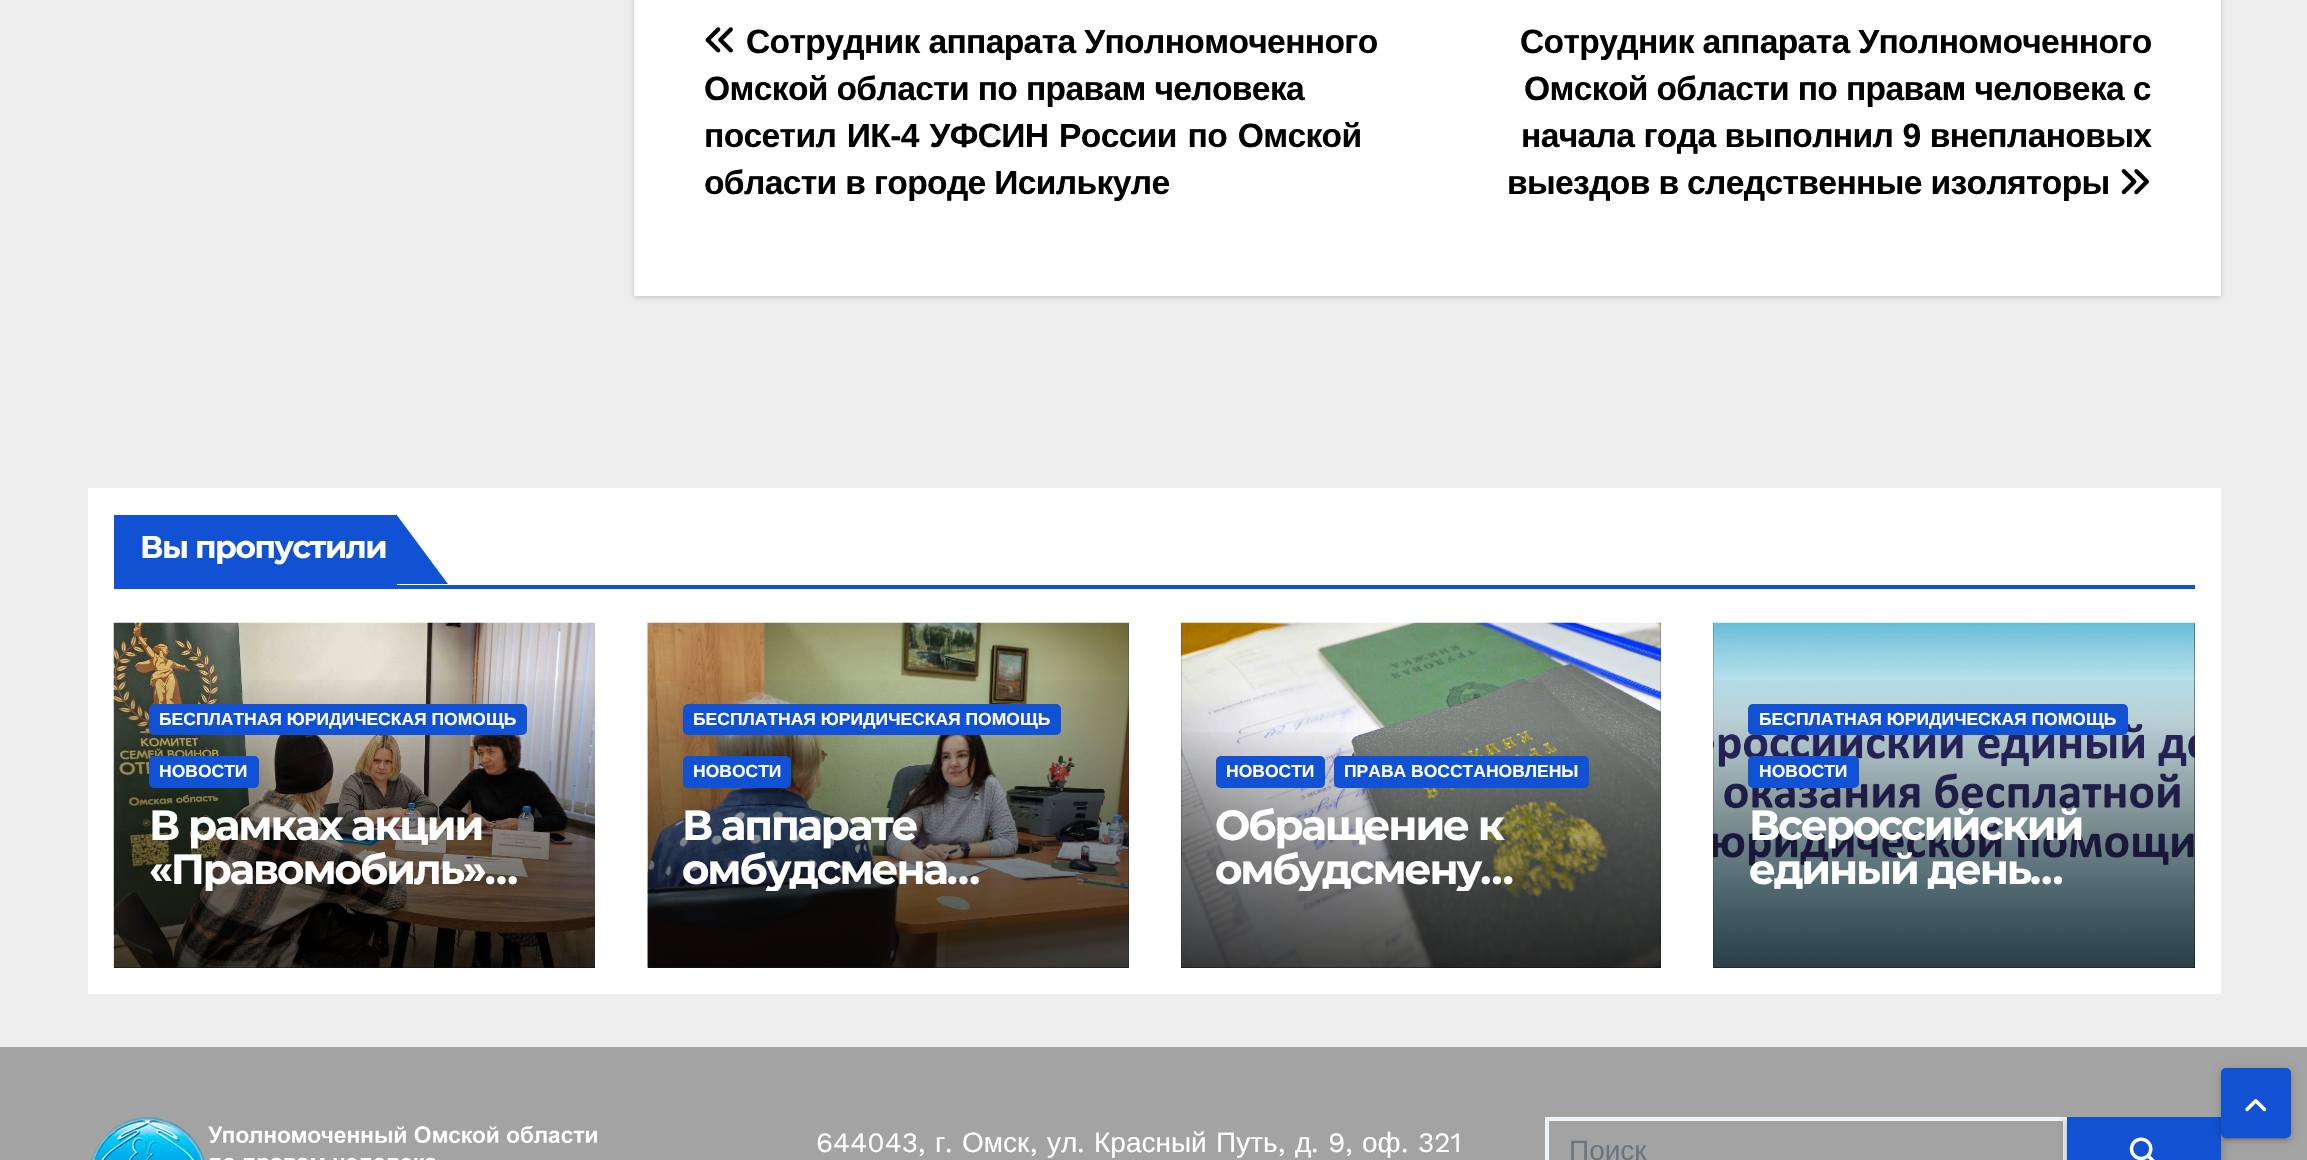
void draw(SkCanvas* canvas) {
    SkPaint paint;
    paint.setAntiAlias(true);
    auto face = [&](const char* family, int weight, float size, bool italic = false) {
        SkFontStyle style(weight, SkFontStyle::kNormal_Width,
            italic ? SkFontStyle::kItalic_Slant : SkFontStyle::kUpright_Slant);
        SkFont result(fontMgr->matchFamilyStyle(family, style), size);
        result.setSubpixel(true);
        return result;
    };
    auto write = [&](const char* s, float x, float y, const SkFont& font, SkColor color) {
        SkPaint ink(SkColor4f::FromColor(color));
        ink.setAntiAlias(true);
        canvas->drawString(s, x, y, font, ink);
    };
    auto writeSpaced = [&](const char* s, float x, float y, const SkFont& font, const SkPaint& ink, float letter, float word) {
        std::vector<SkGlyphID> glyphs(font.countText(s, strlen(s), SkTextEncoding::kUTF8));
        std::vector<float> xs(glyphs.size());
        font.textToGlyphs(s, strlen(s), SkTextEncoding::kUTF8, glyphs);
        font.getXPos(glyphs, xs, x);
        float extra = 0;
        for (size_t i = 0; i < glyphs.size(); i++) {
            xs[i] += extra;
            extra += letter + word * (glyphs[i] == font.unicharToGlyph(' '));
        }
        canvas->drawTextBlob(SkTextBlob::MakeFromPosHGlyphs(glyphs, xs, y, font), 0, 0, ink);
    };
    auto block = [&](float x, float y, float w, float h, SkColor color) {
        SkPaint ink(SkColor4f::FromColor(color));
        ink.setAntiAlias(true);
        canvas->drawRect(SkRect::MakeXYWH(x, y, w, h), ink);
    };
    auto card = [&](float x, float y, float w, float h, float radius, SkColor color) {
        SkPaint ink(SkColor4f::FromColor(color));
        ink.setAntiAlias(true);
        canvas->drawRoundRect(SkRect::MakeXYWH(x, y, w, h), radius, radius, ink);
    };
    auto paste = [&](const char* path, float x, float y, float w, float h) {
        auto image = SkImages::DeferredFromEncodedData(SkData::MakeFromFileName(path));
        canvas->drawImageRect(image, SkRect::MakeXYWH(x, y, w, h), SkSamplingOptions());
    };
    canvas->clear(SkColorSetRGB(238, 238, 238));
    paint.setColor(SkColorSetARGB(38, 0, 0, 0));
    paint.setMaskFilter(SkMaskFilter::MakeBlur(kNormal_SkBlurStyle, 2.5f));
    canvas->drawRect(SkRect::MakeXYWH(634, -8, 1587, 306), paint);
    paint.setMaskFilter(nullptr);
    block(634, 0, 1587, 296, SK_ColorWHITE);
    paste("pic1.png", 705, 27, 28, 26);
    auto kFont1 = face("Liberation Sans", 700, 33.6f);
    paint.setColor(SK_ColorBLACK);
    writeSpaced("Сотрудник аппарата Уполномоченного", 746, 53, kFont1, paint, -0.65f, 0);
    writeSpaced("Омской области по правам человека", 704, 100, kFont1, paint, -0.65f, 0);
    writeSpaced("посетил ИК-4 УФСИН России по Омской", 704, 147, kFont1, paint, -0.65f, 2);
    writeSpaced("области в городе Исилькуле", 704, 194, kFont1, paint, -0.65f, 0);
    writeSpaced("Сотрудник аппарата Уполномоченного", 1520, 53, kFont1, paint, -0.65f, 0);
    writeSpaced("Омской области по правам человека с", 1524, 100, kFont1, paint, -0.65f, 0);
    writeSpaced("начала года выполнил 9 внеплановых", 1521, 147, kFont1, paint, -0.65f, 0.5f);
    writeSpaced("выездов в следственные изоляторы", 1507, 194, kFont1, paint, -0.65f, 0);
    paste("pic2.png", 2121, 169, 28, 26);
    block(88, 488, 2133, 506, SK_ColorWHITE);
    block(114, 585, 2081, 4, SkColorSetRGB(17, 81, 211));
    block(114, 515, 283, 70, SkColorSetRGB(17, 81, 211));
    auto kFont2 = face("Montserrat", 700, 31.5f);
    paint.setColor(SK_ColorWHITE);
    writeSpaced("Вы пропустили", 140, 558, kFont2, paint, -1.5f, 0);
    paint.setColor(SkColorSetRGB(17, 81, 211));
    canvas->drawPath(SkPathBuilder().moveTo(396, 584).lineTo(396, 514).lineTo(448, 584).close().detach(), paint);
    block(114, 967, 481, 1, SkColorSetRGB(51, 51, 51));
    paste("pic3.png", 113, 622, 482, 346);
    {
        const SkColor colors[] = {SkColorSetARGB(0, 0, 0, 0), SkColorSetARGB(102, 0, 0, 0), SkColorSetARGB(179, 0, 0, 0)};
        const float stops[] = {0, 0.5f, 1};
        const SkPoint ends[] = {{354, 672}, {354, 968}};
        paint.setShader(SkGradientShader::MakeLinear(ends, colors, stops, 3, SkTileMode::kClamp));
        paint.setAlpha(255);
    }
    canvas->drawRect(SkRect::MakeXYWH(114, 680, 481, 288), paint);
    card(149, 704, 378, 31, 5, SkColorSetRGB(17, 81, 211));
    auto kFont3 = face("Liberation Sans", 700, 17.5f);
    write("БЕСПЛАТНАЯ ЮРИДИЧЕСКАЯ ПОМОЩЬ", 159, 725, kFont3, SK_ColorWHITE);
    card(149, 756, 110, 32, 5, SkColorSetRGB(17, 81, 211));
    write("НОВОСТИ", 159, 777, kFont3, SK_ColorWHITE);
    auto kFont4 = face("Montserrat", 700, 42);
    paint.setShader(nullptr);
    paint.setColor(SK_ColorWHITE);
    writeSpaced("В рамках акции", 149, 840, kFont4, paint, -2.1f, 0);
    canvas->save();
    canvas->clipRect(SkRect::MakeXYWH(149, 803, 411, 88));
    writeSpaced("«Правомобиль»…", 149, 884, kFont4, paint, -2.1f, 0);
    canvas->restore();
    block(648, 623, 481, 345, SkColorSetRGB(51, 51, 51));
    paste("pic4.png", 647, 622, 482, 346);
    {
        const SkColor colors[] = {SkColorSetARGB(0, 0, 0, 0), SkColorSetARGB(102, 0, 0, 0), SkColorSetARGB(179, 0, 0, 0)};
        const float stops[] = {0, 0.5f, 1};
        const SkPoint ends[] = {{888, 672}, {888, 968}};
        paint.setShader(SkGradientShader::MakeLinear(ends, colors, stops, 3, SkTileMode::kClamp));
        paint.setAlpha(255);
    }
    canvas->drawRect(SkRect::MakeXYWH(648, 680, 481, 288), paint);
    card(683, 704, 378, 31, 5, SkColorSetRGB(17, 81, 211));
    write("БЕСПЛАТНАЯ ЮРИДИЧЕСКАЯ ПОМОЩЬ", 693, 725, kFont3, SK_ColorWHITE);
    card(683, 756, 108, 32, 5, SkColorSetRGB(17, 81, 211));
    write("НОВОСТИ", 693, 777, kFont3, SK_ColorWHITE);
    paint.setShader(nullptr);
    paint.setColor(SK_ColorWHITE);
    writeSpaced("В аппарате", 682, 840, kFont4, paint, -2.1f, 0);
    canvas->save();
    canvas->clipRect(SkRect::MakeXYWH(683, 803, 411, 88));
    writeSpaced("омбудсмена…", 682, 884, kFont4, paint, -2.1f, 0);
    canvas->restore();
    block(1181, 623, 480, 345, SkColorSetRGB(51, 51, 51));
    paste("pic5.png", 1181, 622, 480, 346);
    {
        const SkColor colors[] = {SkColorSetARGB(0, 0, 0, 0), SkColorSetARGB(102, 0, 0, 0), SkColorSetARGB(179, 0, 0, 0)};
        const float stops[] = {0, 0.5f, 1};
        const SkPoint ends[] = {{1421, 725}, {1421, 968}};
        paint.setShader(SkGradientShader::MakeLinear(ends, colors, stops, 3, SkTileMode::kClamp));
        paint.setAlpha(255);
    }
    canvas->drawRect(SkRect::MakeXYWH(1181, 732, 480, 236), paint);
    card(1216, 756, 109, 32, 5, SkColorSetRGB(17, 81, 211));
    write("НОВОСТИ", 1226, 777, kFont3, SK_ColorWHITE);
    card(1334, 756, 255, 32, 5, SkColorSetRGB(17, 81, 211));
    write("ПРАВА ВОССТАНОВЛЕНЫ", 1344, 777, kFont3, SK_ColorWHITE);
    paint.setShader(nullptr);
    paint.setColor(SK_ColorWHITE);
    writeSpaced("Обращение к", 1215, 840, kFont4, paint, -2.1f, 0);
    canvas->save();
    canvas->clipRect(SkRect::MakeXYWH(1216, 803, 410, 88));
    writeSpaced("омбудсмену…", 1215, 884, kFont4, paint, -2.1f, 0);
    canvas->restore();
    block(1713, 623, 482, 345, SkColorSetRGB(51, 51, 51));
    paste("pic6.png", 1713, 622, 482, 346);
    {
        const SkColor colors[] = {SkColorSetARGB(0, 0, 0, 0), SkColorSetARGB(102, 0, 0, 0), SkColorSetARGB(179, 0, 0, 0)};
        const float stops[] = {0, 0.5f, 1};
        const SkPoint ends[] = {{1954, 672}, {1954, 968}};
        paint.setShader(SkGradientShader::MakeLinear(ends, colors, stops, 3, SkTileMode::kClamp));
        paint.setAlpha(255);
    }
    canvas->drawRect(SkRect::MakeXYWH(1713, 680, 482, 288), paint);
    card(1748, 704, 380, 31, 5, SkColorSetRGB(17, 81, 211));
    write("БЕСПЛАТНАЯ ЮРИДИЧЕСКАЯ ПОМОЩЬ", 1759, 725, kFont3, SK_ColorWHITE);
    card(1748, 756, 111, 32, 5, SkColorSetRGB(17, 81, 211));
    write("НОВОСТИ", 1759, 777, kFont3, SK_ColorWHITE);
    paint.setShader(nullptr);
    paint.setColor(SK_ColorWHITE);
    writeSpaced("Всероссийский", 1749, 840, kFont4, paint, -2.1f, 0);
    writeSpaced("единый день…", 1749, 884, kFont4, paint, -2.1f, 0);
    block(0, 1047, 2307, 113, SkColorSetRGB(163, 163, 163));
    paste("pic7.png", 91, 1117, 506, 43);
    auto kFont5 = face("Work Sans", 400, 28);
    write("644043,", 816, 1152, kFont5, SK_ColorWHITE);
    auto kFont6 = face("Liberation Sans", 400, 28);
    write("г", 935, 1152, kFont6, SK_ColorWHITE);
    write(".", 945, 1152, kFont5, SK_ColorWHITE);
    write("Омск", 962, 1152, kFont6, SK_ColorWHITE);
    write(",", 1030, 1152, kFont5, SK_ColorWHITE);
    write("ул", 1047, 1152, kFont6, SK_ColorWHITE);
    write(".", 1077, 1152, kFont5, SK_ColorWHITE);
    write("Красный", 1094, 1152, kFont6, SK_ColorWHITE);
    write("Путь", 1216, 1152, kFont6, SK_ColorWHITE);
    write(",", 1278, 1152, kFont5, SK_ColorWHITE);
    write("д", 1295, 1152, kFont6, SK_ColorWHITE);
    write(". 9,", 1311, 1152, kFont5, SK_ColorWHITE);
    write("оф", 1362, 1152, kFont6, SK_ColorWHITE);
    write(". 321", 1401, 1152, kFont5, SK_ColorWHITE);
    paint.setStyle(SkPaint::kStroke_Style);
    paint.setStrokeWidth(4);
    paint.setColor(SkColorSetRGB(238, 243, 251));
    canvas->drawRect(SkRect::MakeXYWH(1547, 1119, 518, 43), paint);
    write("Поиск", 1569, 1160, kFont6, SkColorSetRGB(108, 117, 125));
    canvas->save();
    canvas->clipRect(SkRect::MakeXYWH(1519, 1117, 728, 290));
    paint.setStyle(SkPaint::kFill_Style);
    paint.setColor(SkColorSetARGB(66, 0, 0, 0));
    paint.setMaskFilter(SkMaskFilter::MakeBlur(kNormal_SkBlurStyle, 4.5f));
    canvas->drawRect(SkRect::MakeXYWH(2067, 1120, 154, 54), paint);
    paint.setMaskFilter(nullptr);
    canvas->restore();
    block(2067, 1117, 154, 43, SkColorSetRGB(17, 81, 211));
    paste("pic8.png", 2129, 1137, 26, 23);
    paint.setColor(SkColorSetARGB(31, 0, 0, 0));
    paint.setMaskFilter(SkMaskFilter::MakeBlur(kNormal_SkBlurStyle, 4.5f));
    canvas->drawRoundRect(SkRect::MakeXYWH(2221, 1069, 70, 70), 5, 5, paint);
    paint.setMaskFilter(nullptr);
    paint.setColor(SkColorSetARGB(51, 0, 0, 0));
    paint.setMaskFilter(SkMaskFilter::MakeBlur(kNormal_SkBlurStyle, 1));
    canvas->drawRoundRect(SkRect::MakeXYWH(2224, 1076, 63, 63), 2, 2, paint);
    paint.setMaskFilter(nullptr);
    paint.setColor(SkColorSetARGB(36, 0, 0, 0));
    paint.setMaskFilter(SkMaskFilter::MakeBlur(kNormal_SkBlurStyle, 2));
    canvas->drawRoundRect(SkRect::MakeXYWH(2221, 1071, 70, 70), 5, 5, paint);
    paint.setMaskFilter(nullptr);
    paint.setColor(SkColorSetRGB(17, 81, 211));
    canvas->drawRoundRect(SkRect::MakeXYWH(2223, 1070, 66, 66), 3, 3, paint);
    paint.setStyle(SkPaint::kStroke_Style);
    canvas->drawRoundRect(SkRect::MakeXYWH(2223, 1070, 66, 66), 3, 3, paint);
    paste("pic9.png", 2245, 1099, 22, 13);
}
